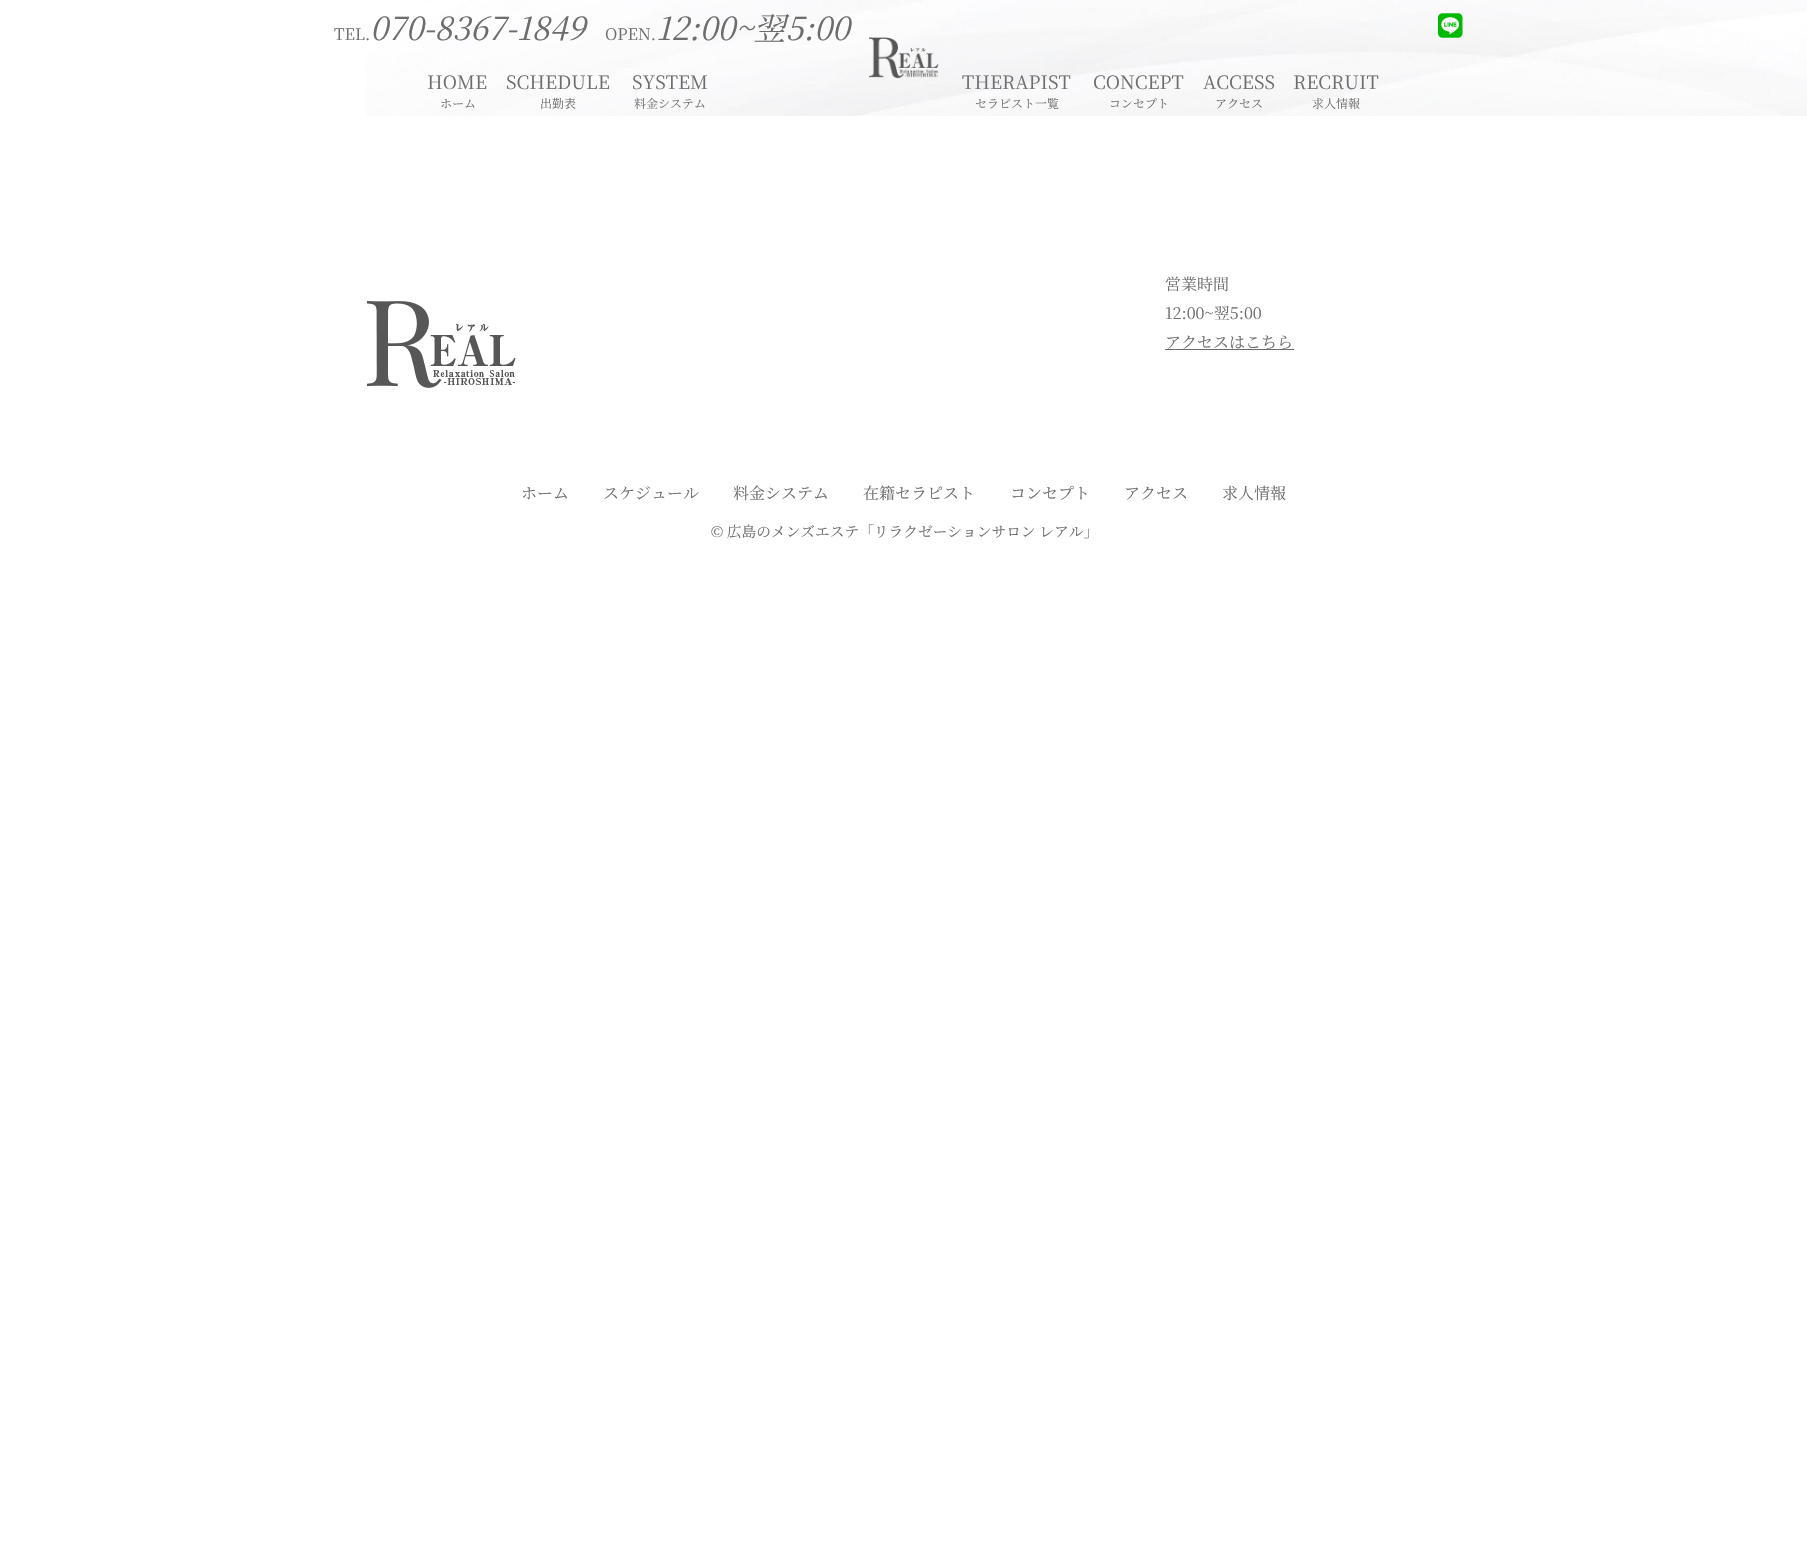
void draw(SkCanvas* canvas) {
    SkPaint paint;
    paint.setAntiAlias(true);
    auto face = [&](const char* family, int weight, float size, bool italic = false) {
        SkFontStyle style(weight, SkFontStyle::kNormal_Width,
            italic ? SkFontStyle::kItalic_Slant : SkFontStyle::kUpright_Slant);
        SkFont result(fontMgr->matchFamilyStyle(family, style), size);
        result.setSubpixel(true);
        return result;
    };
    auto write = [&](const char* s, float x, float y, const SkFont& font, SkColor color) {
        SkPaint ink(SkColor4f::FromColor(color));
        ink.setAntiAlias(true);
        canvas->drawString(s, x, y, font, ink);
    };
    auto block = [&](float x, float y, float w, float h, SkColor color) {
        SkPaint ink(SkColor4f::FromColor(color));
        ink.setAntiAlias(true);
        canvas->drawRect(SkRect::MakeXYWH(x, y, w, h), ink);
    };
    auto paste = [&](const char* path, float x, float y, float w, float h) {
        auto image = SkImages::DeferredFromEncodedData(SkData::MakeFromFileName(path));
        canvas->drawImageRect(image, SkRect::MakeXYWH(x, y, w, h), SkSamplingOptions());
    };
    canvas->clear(SK_ColorWHITE);
    paste("pic1.png", 366, 0, 1441, 116);
    auto kFont1 = face("Noto Serif JP", 200, 16);
    write("TEL.", 334, 40, kFont1, SkColorSetRGB(109, 109, 109));
    auto kFont2 = face("Noto Serif JP", 200, 32, true);
    write("070-8367-1849", 370, 40, kFont2, SkColorSetRGB(109, 109, 109));
    write("OPEN.", 605, 40, kFont1, SkColorSetRGB(109, 109, 109));
    write("12:00~翌5:00", 656, 40, kFont2, SkColorSetRGB(109, 109, 109));
    paint.setColor(SK_ColorWHITE);
    canvas->drawPath(SkPathBuilder().moveTo(1442, 38).lineTo(1442, 15).lineTo(1455, 15).lineTo(1455, 38).close().moveTo(1443.5f, 36.5f).lineTo(1453.5f, 36.5f).lineTo(1453.5f, 17).lineTo(1443.5f, 17).close().detach(), paint);
    paste("pic2.png", 1438, 13, 25, 25);
    auto kFont3 = face("Noto Serif JP", 200, 18.5f);
    write("HOME", 427, 89, kFont3, SkColorSetRGB(109, 109, 109));
    auto kFont4 = face("Noto Serif JP", 200, 12);
    write("ホーム", 440, 108, kFont4, SkColorSetRGB(109, 109, 109));
    write("SCHEDULE", 506, 89, kFont3, SkColorSetRGB(109, 109, 109));
    write("出勤表", 540, 108, kFont4, SkColorSetRGB(109, 109, 109));
    write("SYSTEM", 632, 89, kFont3, SkColorSetRGB(109, 109, 109));
    write("料金システム", 634, 108, kFont4, SkColorSetRGB(109, 109, 109));
    write("THERAPIST", 962, 89, kFont3, SkColorSetRGB(109, 109, 109));
    write("セラピスト一覧", 975, 108, kFont4, SkColorSetRGB(109, 109, 109));
    write("CONCEPT", 1093, 89, kFont3, SkColorSetRGB(109, 109, 109));
    write("コンセプト", 1109, 108, kFont4, SkColorSetRGB(109, 109, 109));
    write("ACCESS", 1203, 89, kFont3, SkColorSetRGB(109, 109, 109));
    write("アクセス", 1215, 108, kFont4, SkColorSetRGB(109, 109, 109));
    write("RECRUIT", 1293, 89, kFont3, SkColorSetRGB(109, 109, 109));
    write("求人情報", 1312, 108, kFont4, SkColorSetRGB(109, 109, 109));
    paste("pic3.png", 367, 301, 149, 87);
    write("営業時間", 1165, 290, kFont1, SkColorSetRGB(109, 109, 109));
    write("12:00~翌5:00", 1165, 319, kFont1, SkColorSetRGB(109, 109, 109));
    write("アクセスはこちら", 1165, 348, kFont1, SkColorSetRGB(109, 109, 109));
    block(1165, 349, 129, 1, SkColorSetRGB(109, 109, 109));
    write("ホーム", 521, 499, kFont1, SkColorSetRGB(109, 109, 109));
    write("スケジュール", 603, 499, kFont1, SkColorSetRGB(109, 109, 109));
    write("料金システム", 733, 499, kFont1, SkColorSetRGB(109, 109, 109));
    write("在籍セラピスト", 863, 499, kFont1, SkColorSetRGB(109, 109, 109));
    write("コンセプト", 1010, 499, kFont1, SkColorSetRGB(109, 109, 109));
    write("アクセス", 1124, 499, kFont1, SkColorSetRGB(109, 109, 109));
    write("求人情報", 1222, 499, kFont1, SkColorSetRGB(109, 109, 109));
    auto kFont5 = face("Noto Serif JP", 200, 14.7f);
    write("© 広島のメンズエステ「リラクゼーションサロン レアル」", 711, 537, kFont5, SkColorSetRGB(109, 109, 109));
}
